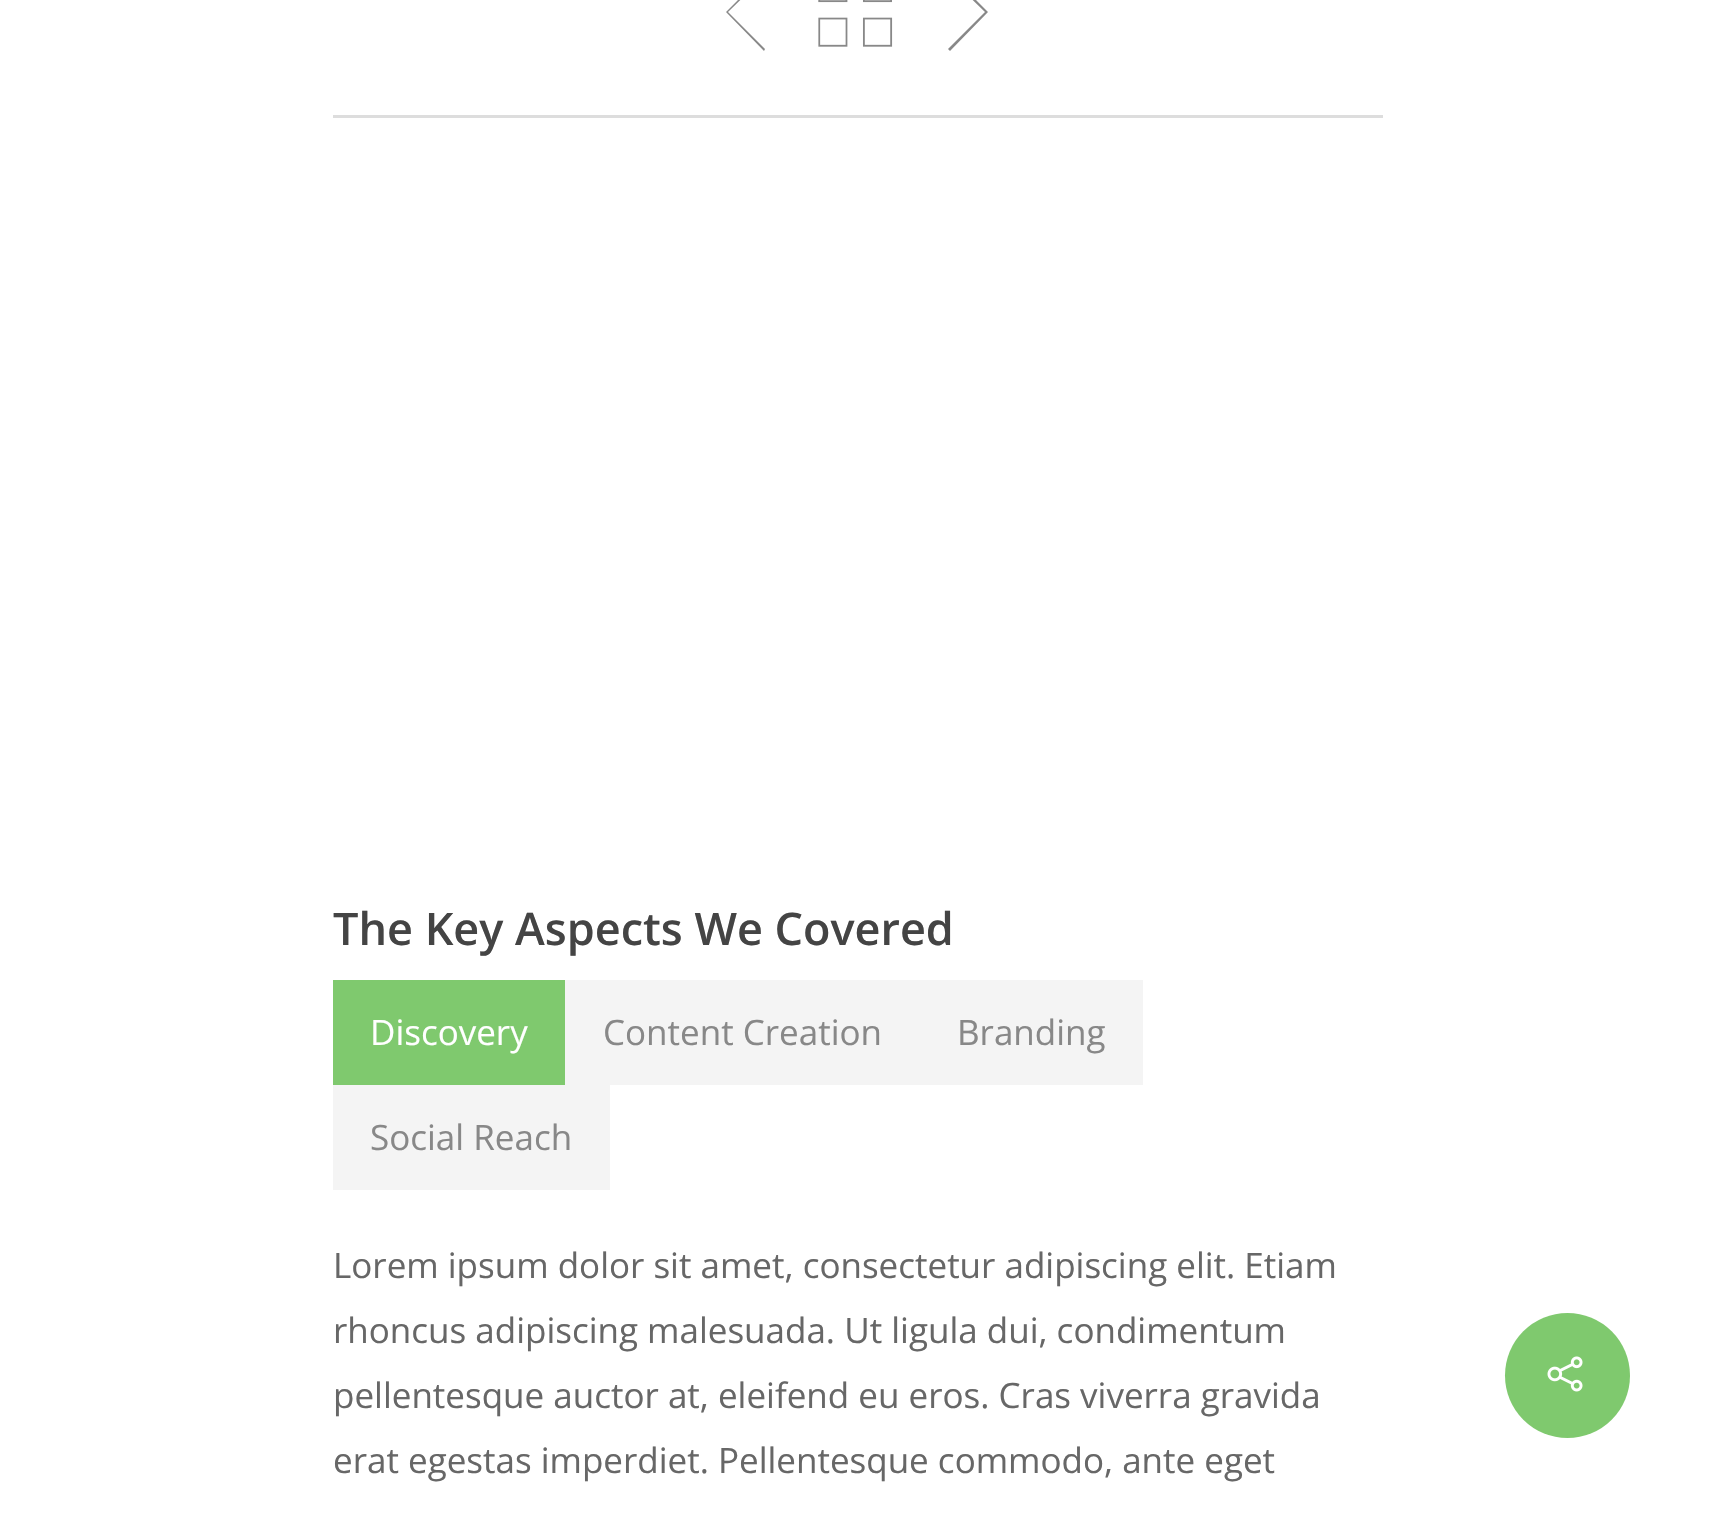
void draw(SkCanvas* canvas) {
    SkPaint paint;
    paint.setAntiAlias(true);
    auto face = [&](const char* family, int weight, float size, bool italic = false) {
        SkFontStyle style(weight, SkFontStyle::kNormal_Width,
            italic ? SkFontStyle::kItalic_Slant : SkFontStyle::kUpright_Slant);
        SkFont result(fontMgr->matchFamilyStyle(family, style), size);
        result.setSubpixel(true);
        return result;
    };
    auto write = [&](const char* s, float x, float y, const SkFont& font, SkColor color) {
        SkPaint ink(SkColor4f::FromColor(color));
        ink.setAntiAlias(true);
        canvas->drawString(s, x, y, font, ink);
    };
    auto block = [&](float x, float y, float w, float h, SkColor color) {
        SkPaint ink(SkColor4f::FromColor(color));
        ink.setAntiAlias(true);
        canvas->drawRect(SkRect::MakeXYWH(x, y, w, h), ink);
    };
    auto paste = [&](const char* path, float x, float y, float w, float h) {
        auto image = SkImages::DeferredFromEncodedData(SkData::MakeFromFileName(path));
        canvas->drawImageRect(image, SkRect::MakeXYWH(x, y, w, h), SkSamplingOptions());
    };
    canvas->clear(SK_ColorWHITE);
    block(333, 115, 1050, 3, SkColorSetRGB(221, 221, 221));
    paint.setColor(SkColorSetRGB(136, 136, 136));
    canvas->drawPath(SkPathBuilder().moveTo(765, -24).lineTo(764, -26).lineTo(726, 12).lineTo(764, 51).lineTo(765, 49).lineTo(728, 12).close().detach(), paint);
    canvas->drawPath(SkPathBuilder().moveTo(948, -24).lineTo(950, -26).lineTo(988, 12).lineTo(950, 51).lineTo(948, 49).lineTo(985, 12).close().detach(), paint);
    paste("pic1.png", 818, 0, 75, 47);
    auto kFont1 = face("Open Sans", 600, 45);
    write("The Key Aspects We Covered", 333, 945, kFont1, SkColorSetRGB(68, 68, 68));
    block(333, 980, 232, 105, SkColorSetRGB(127, 201, 110));
    auto kFont2 = face("Open Sans", 400, 35);
    write("Discovery", 370, 1045, kFont2, SK_ColorWHITE);
    block(565, 980, 578, 105, SkColorSetRGB(244, 244, 244));
    write("Content Creation", 603, 1045, kFont2, SkColorSetRGB(136, 136, 136));
    write("Branding", 957, 1045, kFont2, SkColorSetRGB(136, 136, 136));
    block(333, 1085, 277, 105, SkColorSetRGB(244, 244, 244));
    write("Social Reach", 370, 1150, kFont2, SkColorSetRGB(136, 136, 136));
    write("Lorem ipsum dolor sit amet, consectetur adipiscing elit. Etiam", 333, 1278, kFont2, SkColorSetRGB(103, 103, 103));
    write("rhoncus adipiscing malesuada. Ut ligula dui, condimentum", 333, 1343, kFont2, SkColorSetRGB(103, 103, 103));
    write("pellentesque auctor at, eleifend eu eros. Cras viverra gravida", 333, 1408, kFont2, SkColorSetRGB(103, 103, 103));
    write("erat egestas imperdiet. Pellentesque commodo, ante eget", 333, 1473, kFont2, SkColorSetRGB(103, 103, 103));
    paint.setColor(SkColorSetRGB(127, 201, 110));
    canvas->drawCircle(1567.5f, 1375.5f, 62.5f, paint);
    paste("pic2.png", 1547, 1356, 36, 36);
}
